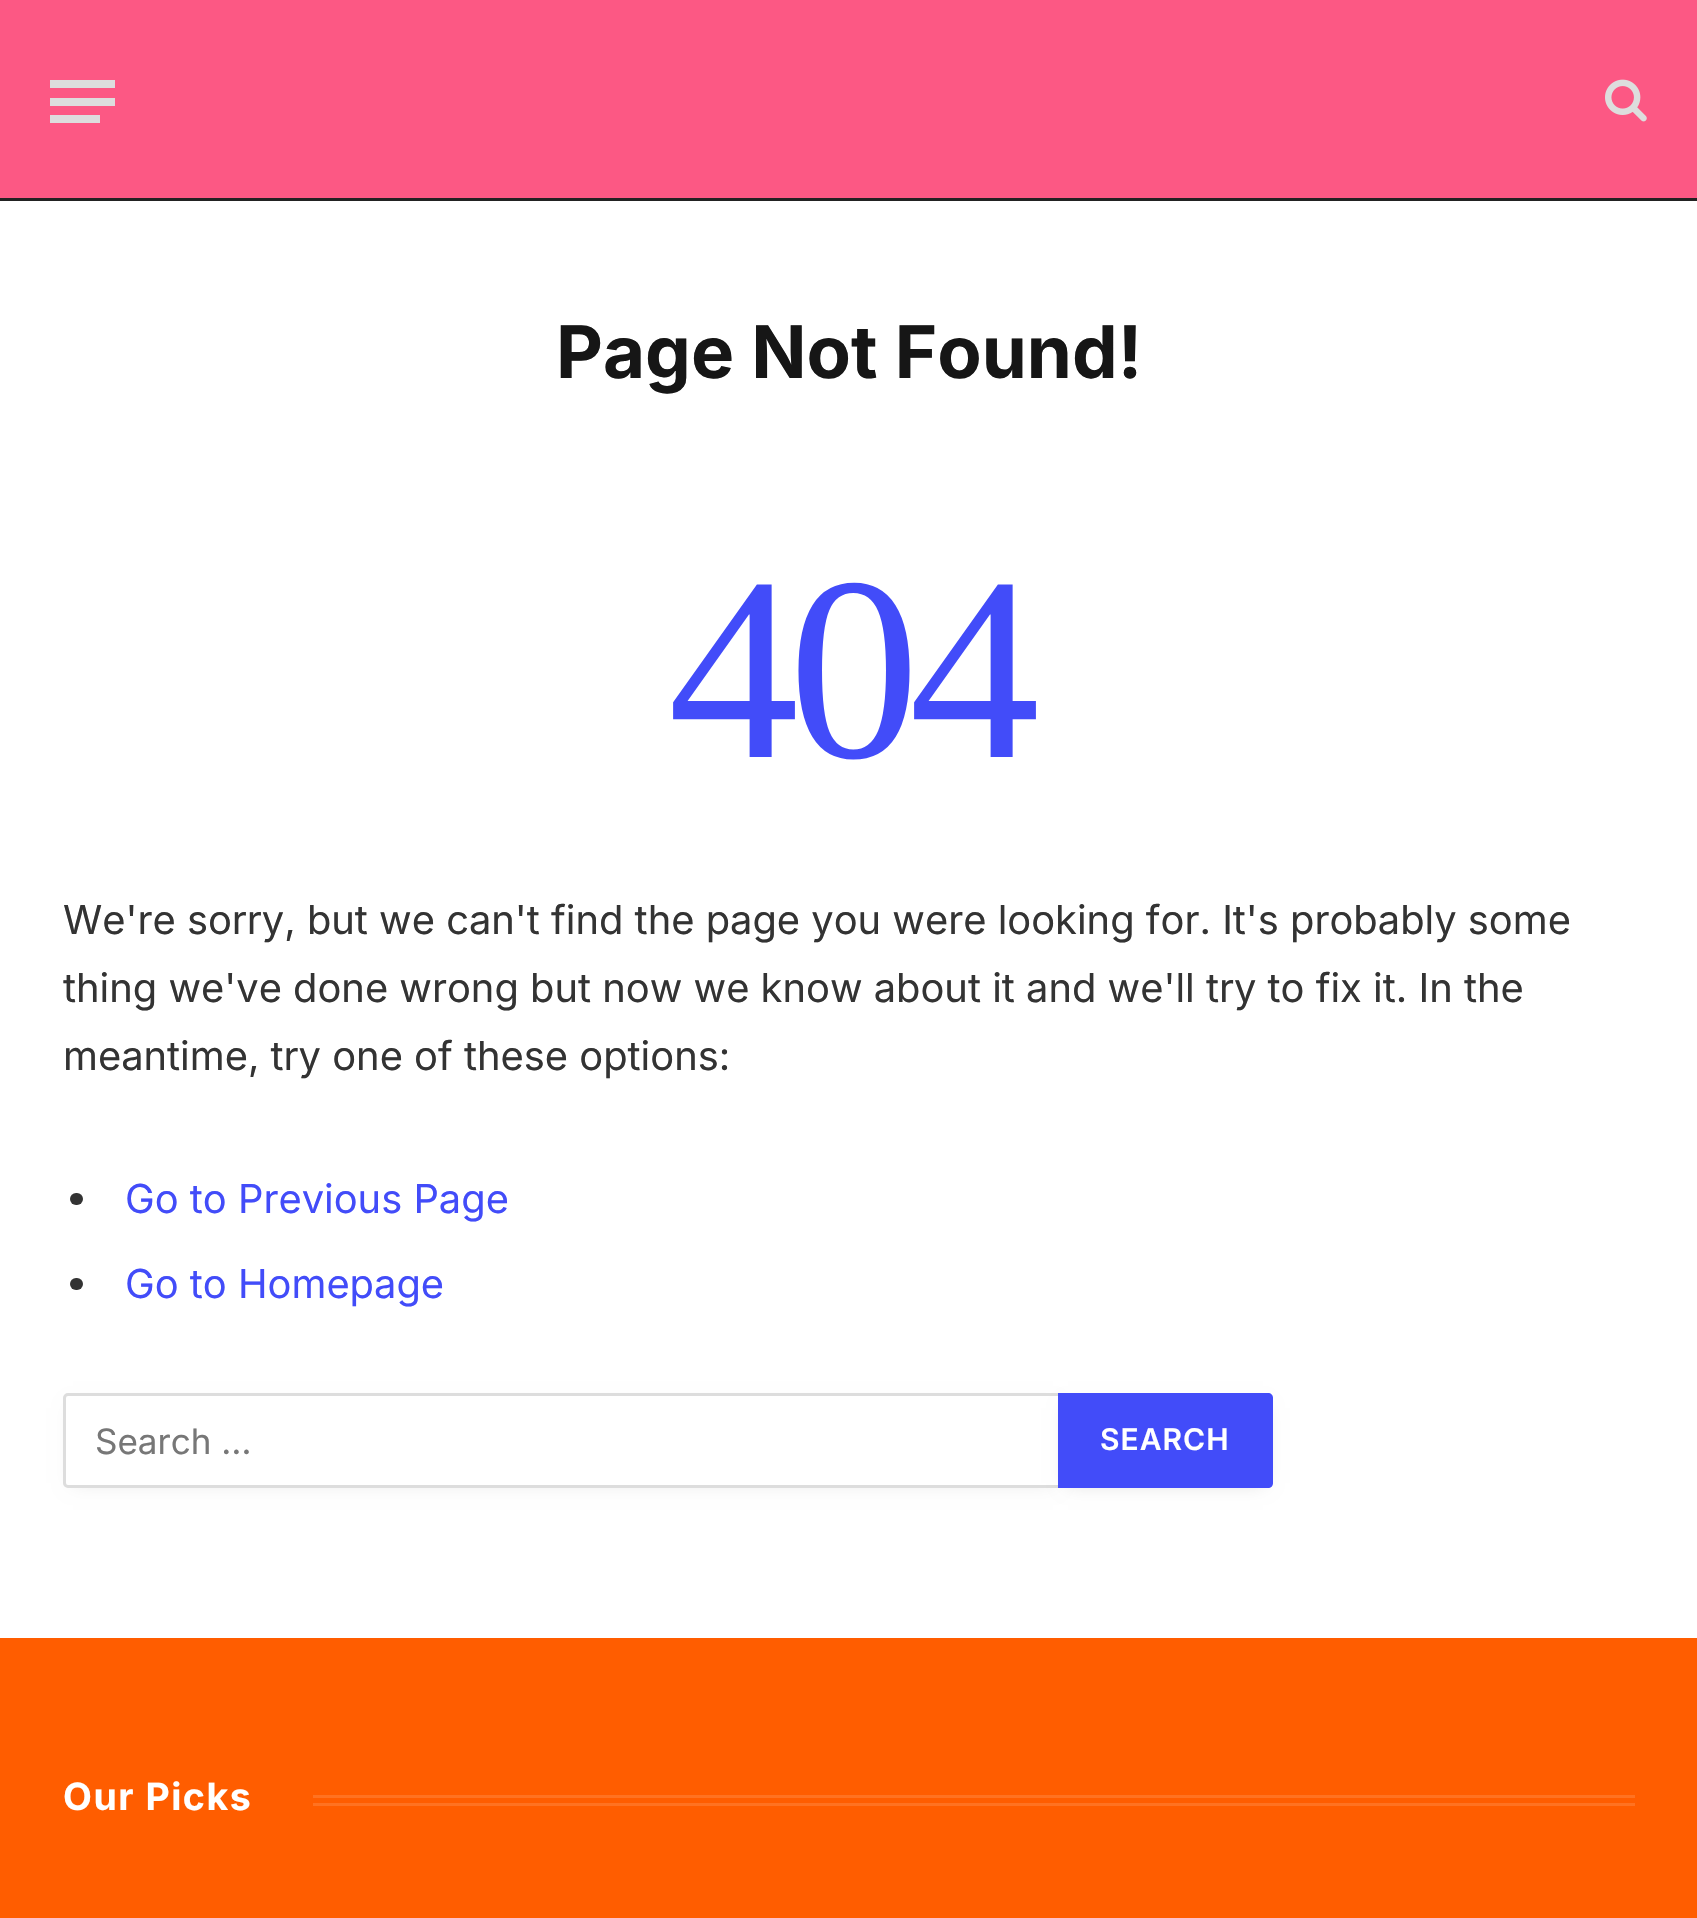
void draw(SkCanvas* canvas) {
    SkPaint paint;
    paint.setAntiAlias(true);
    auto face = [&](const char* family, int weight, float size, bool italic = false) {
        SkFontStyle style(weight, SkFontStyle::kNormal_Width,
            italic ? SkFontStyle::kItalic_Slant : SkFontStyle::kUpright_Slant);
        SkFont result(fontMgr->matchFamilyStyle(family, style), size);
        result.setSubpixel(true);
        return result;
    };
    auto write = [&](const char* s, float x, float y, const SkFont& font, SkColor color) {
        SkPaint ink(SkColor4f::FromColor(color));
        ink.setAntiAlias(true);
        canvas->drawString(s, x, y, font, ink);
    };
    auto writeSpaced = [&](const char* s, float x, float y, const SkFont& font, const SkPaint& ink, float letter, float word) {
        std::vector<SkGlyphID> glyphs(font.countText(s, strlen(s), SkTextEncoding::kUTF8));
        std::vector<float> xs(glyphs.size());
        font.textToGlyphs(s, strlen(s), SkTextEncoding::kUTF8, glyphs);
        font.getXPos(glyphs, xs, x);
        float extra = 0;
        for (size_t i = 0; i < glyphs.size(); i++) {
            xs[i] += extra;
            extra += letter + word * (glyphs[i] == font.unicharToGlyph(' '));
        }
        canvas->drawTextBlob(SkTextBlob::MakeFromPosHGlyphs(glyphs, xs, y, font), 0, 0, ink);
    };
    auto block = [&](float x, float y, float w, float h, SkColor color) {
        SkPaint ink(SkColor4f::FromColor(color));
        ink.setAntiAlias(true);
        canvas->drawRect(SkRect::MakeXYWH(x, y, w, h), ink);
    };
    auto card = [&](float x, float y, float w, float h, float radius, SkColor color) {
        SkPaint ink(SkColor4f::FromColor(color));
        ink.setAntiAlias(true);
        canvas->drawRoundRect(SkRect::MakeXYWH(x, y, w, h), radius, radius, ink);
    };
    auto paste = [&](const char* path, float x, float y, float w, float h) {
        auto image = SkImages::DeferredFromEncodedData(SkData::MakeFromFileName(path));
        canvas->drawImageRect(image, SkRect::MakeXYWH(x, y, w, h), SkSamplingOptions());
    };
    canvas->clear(SK_ColorWHITE);
    block(0, 0, 1697, 198, SkColorSetRGB(252, 88, 132));
    block(0, 198, 1697, 3, SkColorSetRGB(34, 34, 34));
    block(50, 115, 50, 8, SkColorSetRGB(221, 221, 221));
    block(50, 80, 65, 8, SkColorSetRGB(221, 221, 221));
    block(50, 98, 65, 8, SkColorSetRGB(221, 221, 221));
    paste("pic1.png", 1605, 79, 42, 43);
    auto kFont1 = face("Inter", 700, 72.5f);
    write("Page Not Found!", 556, 378, kFont1, SkColorSetRGB(22, 22, 22));
    auto kFont2 = face("Liberation Serif", 400, 262);
    paint.setColor(SkColorSetRGB(66, 76, 249));
    writeSpaced("404", 668, 757, kFont2, paint, -10.5f, 0);
    auto kFont3 = face("Inter", 400, 39.85f);
    write("We're sorry, but we can't find the page you were looking for. It's probably some", 63, 934, kFont3, SkColorSetRGB(51, 51, 51));
    write("thing we've done wrong but now we know about it and we'll try to fix it. In the", 63, 1002, kFont3, SkColorSetRGB(51, 51, 51));
    write("meantime, try one of these options:", 63, 1070, kFont3, SkColorSetRGB(51, 51, 51));
    card(70, 1193, 13, 12, 6, SkColorSetRGB(51, 51, 51));
    write("Go to Previous Page", 125, 1213, kFont3, SkColorSetRGB(66, 76, 249));
    card(70, 1278, 13, 12, 6, SkColorSetRGB(51, 51, 51));
    write("Go to Homepage", 125, 1298, kFont3, SkColorSetRGB(66, 76, 249));
    paint.setColor(SkColorSetARGB(26, 0, 0, 0));
    paint.setMaskFilter(SkMaskFilter::MakeBlur(kNormal_SkBlurStyle, 9));
    canvas->drawRect(SkRect::MakeXYWH(73, 1408, 980, 75), paint);
    paint.setMaskFilter(nullptr);
    paint.setColor(SK_ColorWHITE);
    canvas->drawRoundRect(SkRect::MakeXYWH(64.5f, 1394.5f, 997, 92), 3.5f, 3.5f, paint);
    paint.setStyle(SkPaint::kStroke_Style);
    paint.setStrokeWidth(3);
    paint.setColor(SkColorSetRGB(221, 221, 221));
    canvas->drawRoundRect(SkRect::MakeXYWH(64.5f, 1394.5f, 997, 92), 3.5f, 3.5f, paint);
    auto kFont4 = face("Inter", 400, 35);
    write("Search …", 95, 1454, kFont4, SkColorSetRGB(119, 119, 119));
    paint.setStyle(SkPaint::kFill_Style);
    paint.setColor(SkColorSetARGB(41, 0, 0, 0));
    paint.setMaskFilter(SkMaskFilter::MakeBlur(kNormal_SkBlurStyle, 9));
    canvas->drawRect(SkRect::MakeXYWH(1068, 1408, 195, 75), paint);
    paint.setMaskFilter(nullptr);
    paint.setColor(SkColorSetRGB(66, 76, 249));
    canvas->drawPath(SkPathBuilder().moveTo(1058, 1393).lineTo(1268, 1393).cubicTo(1271, 1393, 1273, 1395, 1273, 1398).lineTo(1273, 1483).cubicTo(1273, 1486, 1271, 1488, 1268, 1488).lineTo(1058, 1488).close().detach(), paint);
    auto kFont5 = face("Inter", 600, 30);
    paint.setColor(SK_ColorWHITE);
    writeSpaced("SEARCH", 1100, 1450, kFont5, paint, 1, 0);
    block(0, 1638, 1697, 280, SkColorSetRGB(255, 93, 0));
    auto kFont6 = face("Inter", 700, 37.5f);
    writeSpaced("Our Picks", 63, 1810, kFont6, paint, 1.5f, 0);
    block(313, 1795, 1322, 3, SkColorSetRGB(255, 114, 33));
    block(313, 1803, 1322, 3, SkColorSetRGB(255, 114, 33));
}
